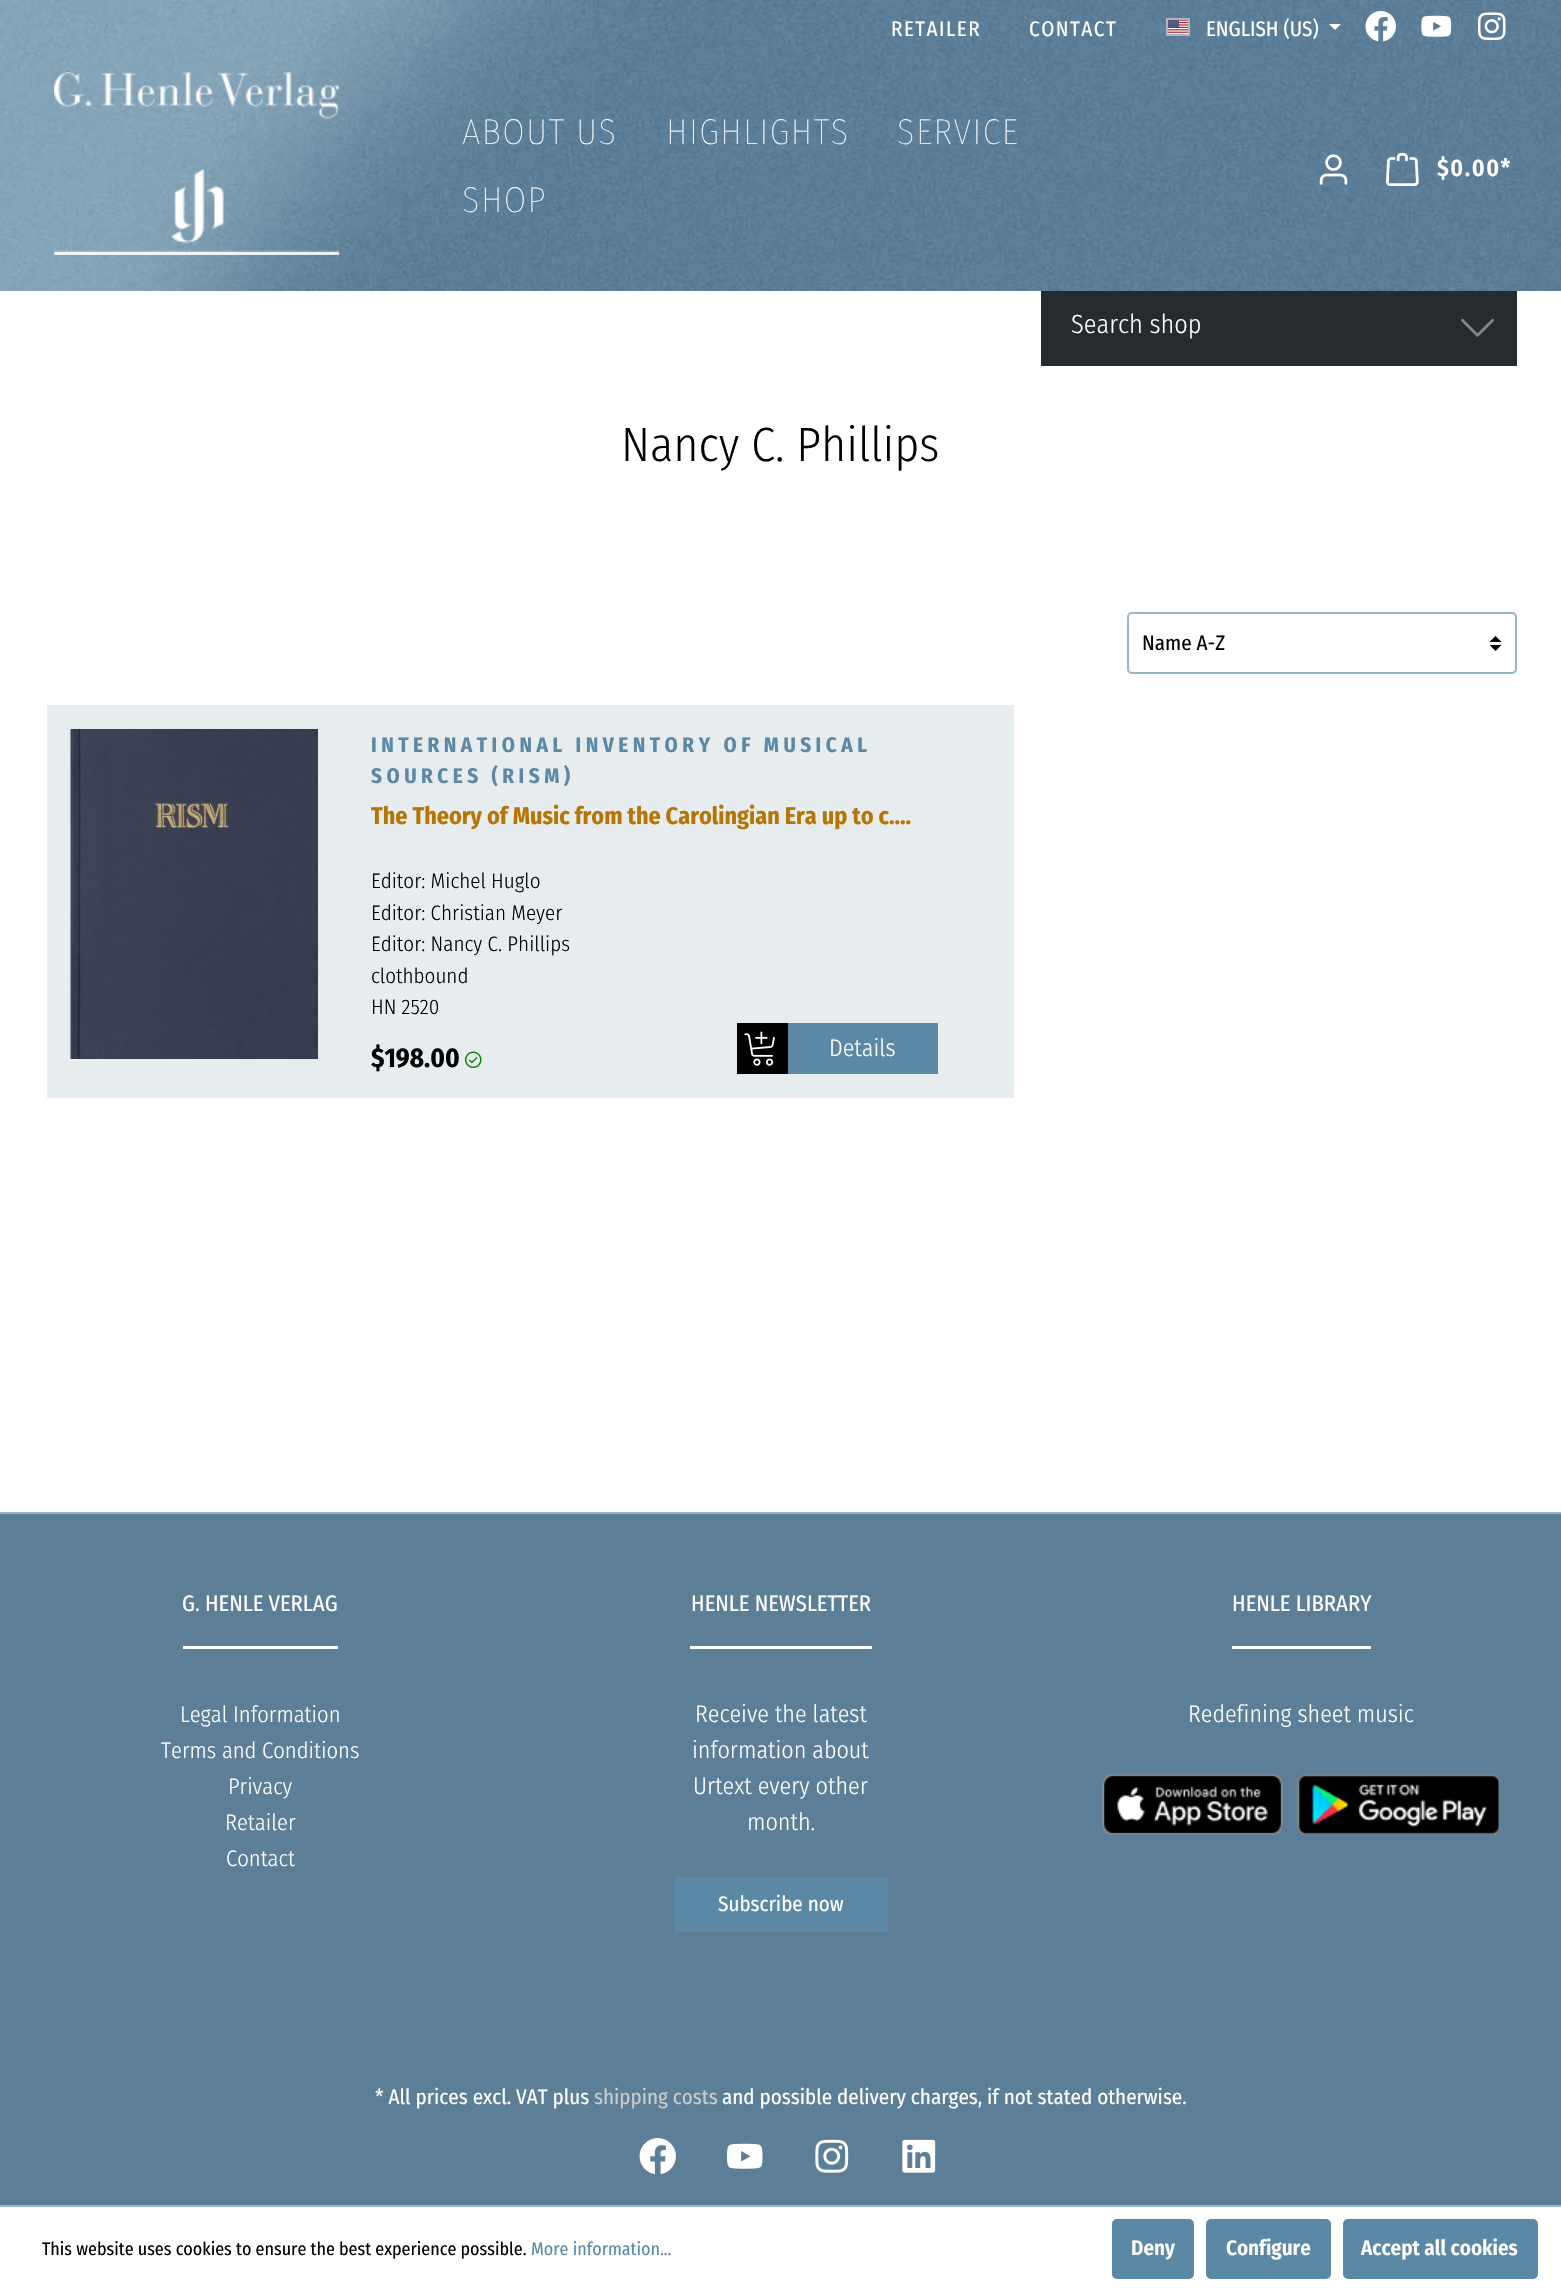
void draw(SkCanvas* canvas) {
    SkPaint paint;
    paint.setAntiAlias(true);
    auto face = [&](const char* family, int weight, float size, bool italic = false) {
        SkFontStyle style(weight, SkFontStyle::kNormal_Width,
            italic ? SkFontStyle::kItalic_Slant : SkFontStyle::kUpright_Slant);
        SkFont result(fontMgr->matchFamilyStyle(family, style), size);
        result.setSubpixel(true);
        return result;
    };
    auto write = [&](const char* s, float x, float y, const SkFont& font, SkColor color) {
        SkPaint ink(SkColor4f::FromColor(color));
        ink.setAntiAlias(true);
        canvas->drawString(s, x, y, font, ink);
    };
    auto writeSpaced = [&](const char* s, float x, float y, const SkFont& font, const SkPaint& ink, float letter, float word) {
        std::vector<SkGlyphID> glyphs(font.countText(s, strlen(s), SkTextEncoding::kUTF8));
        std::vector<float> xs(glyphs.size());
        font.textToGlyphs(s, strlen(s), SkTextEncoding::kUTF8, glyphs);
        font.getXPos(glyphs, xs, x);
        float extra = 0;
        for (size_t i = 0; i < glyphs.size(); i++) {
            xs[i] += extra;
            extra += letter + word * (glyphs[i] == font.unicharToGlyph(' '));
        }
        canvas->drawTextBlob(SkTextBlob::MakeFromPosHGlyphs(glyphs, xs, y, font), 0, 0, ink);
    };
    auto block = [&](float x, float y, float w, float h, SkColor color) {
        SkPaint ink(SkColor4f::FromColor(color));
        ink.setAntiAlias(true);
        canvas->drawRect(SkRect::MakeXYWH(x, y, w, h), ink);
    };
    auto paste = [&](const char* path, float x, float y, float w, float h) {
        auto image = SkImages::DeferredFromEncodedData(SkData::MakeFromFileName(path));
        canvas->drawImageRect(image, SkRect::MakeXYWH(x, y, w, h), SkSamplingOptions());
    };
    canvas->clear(SK_ColorWHITE);
    paste("pic1.png", 0, 0, 1561, 291);
    auto kFont1 = face("Fira Sans Condensed", 400, 21);
    paint.setColor(SK_ColorWHITE);
    writeSpaced("RETAILER", 891, 36, kFont1, paint, 1.5f, 0);
    writeSpaced("CONTACT", 1029, 36, kFont1, paint, 1.5f, 0);
    paste("pic2.png", 1168, 20, 20, 14);
    paint.setStyle(SkPaint::kStroke_Style);
    paint.setStrokeWidth(2);
    paint.setColor(SkColorSetRGB(173, 181, 189));
    canvas->drawRect(SkRect::MakeXYWH(1167, 19, 22, 16), paint);
    write("ENGLISH (US)", 1206, 36, kFont1, SK_ColorWHITE);
    paint.setStyle(SkPaint::kFill_Style);
    paint.setColor(SK_ColorWHITE);
    canvas->drawPath(SkPathBuilder().moveTo(1329, 24).lineTo(1341, 24).lineTo(1335, 30).close().detach(), paint);
    paste("pic3.png", 1365, 11, 31, 31);
    paste("pic4.png", 1421, 15, 31, 22);
    paste("pic5.png", 1477, 12, 29, 28);
    paste("pic6.png", 54, 72, 285, 183);
    auto kFont2 = face("Fira Sans Condensed", 100, 36);
    writeSpaced("ABOUT US", 462, 144, kFont2, paint, 1.5f, 0);
    writeSpaced("HIGHLIGHTS", 666, 144, kFont2, paint, 1.5f, 0);
    writeSpaced("SERVICE", 897, 144, kFont2, paint, 1.5f, 0);
    writeSpaced("SHOP", 462, 212, kFont2, paint, 1.5f, 0);
    paste("pic7.png", 1319, 154, 29, 31);
    paste("pic8.png", 1386, 153, 33, 33);
    auto kFont3 = face("Fira Sans Condensed", 600, 24);
    writeSpaced("$0.00*", 1437, 176, kFont3, paint, 1.5f, 0);
    block(1041, 291, 476, 75, SkColorSetRGB(39, 43, 46));
    auto kFont4 = face("Fira Sans Condensed", 300, 26.25f);
    write("Search shop", 1071, 333, kFont4, SK_ColorWHITE);
    paste("pic9.png", 1461, 318, 33, 19);
    auto kFont5 = face("Fira Sans Condensed", 300, 48);
    write("Nancy C. Phillips", 621, 461, kFont5, SK_ColorBLACK);
    paste("pic10.png", 1490, 636, 12, 15);
    paint.setStyle(SkPaint::kStroke_Style);
    paint.setColor(SkColorSetRGB(154, 181, 199));
    canvas->drawRoundRect(SkRect::MakeXYWH(1128, 613, 388, 60), 4, 4, paint);
    write("Name A-Z", 1142, 650, kFont1, SK_ColorBLACK);
    block(47, 705, 967, 393, SkColorSetRGB(231, 236, 239));
    paste("pic11.png", 70, 729, 248, 330);
    auto kFont6 = face("Fira Sans Condensed", 700, 21);
    paint.setStyle(SkPaint::kFill_Style);
    paint.setColor(SkColorSetRGB(91, 137, 165));
    writeSpaced("INTERNATIONAL INVENTORY OF MUSICAL", 371, 752, kFont6, paint, 4.5f, 0);
    writeSpaced("SOURCES (RISM)", 371, 783, kFont6, paint, 4.5f, 0);
    canvas->save();
    canvas->clipRect(SkRect::MakeXYWH(371, 800, 567, 66));
    auto kFont7 = face("Fira Sans Condensed", 700, 24);
    write("The Theory of Music from the Carolingian Era up to c.…", 371, 824, kFont7, SkColorSetRGB(183, 116, 0));
    canvas->restore();
    auto kFont8 = face("Fira Sans Condensed", 300, 21);
    write("Editor: Michel Huglo", 371, 888, kFont8, SK_ColorBLACK);
    write("Editor: Christian Meyer", 371, 920, kFont8, SK_ColorBLACK);
    write("Editor: Nancy C. Phillips", 371, 951, kFont8, SK_ColorBLACK);
    write("clothbound", 371, 983, kFont8, SK_ColorBLACK);
    write("HN 2520", 371, 1014, kFont8, SK_ColorBLACK);
    auto kFont9 = face("Fira Sans Condensed", 700, 27);
    write("$198.00", 371, 1067, kFont9, SK_ColorBLACK);
    paste("pic12.png", 465, 1051, 17, 17);
    block(737, 1023, 51, 51, SK_ColorBLACK);
    paste("pic13.png", 744, 1031, 31, 35);
    block(788, 1023, 150, 51, SkColorSetRGB(91, 137, 165));
    auto kFont10 = face("Fira Sans Condensed", 300, 24);
    write("Details", 829, 1056, kFont10, SK_ColorWHITE);
    block(0, 1514, 1561, 691, SkColorSetRGB(92, 126, 151));
    block(0, 1512, 1561, 2, SkColorSetRGB(154, 181, 199));
    auto kFont11 = face("Fira Sans Condensed", 400, 22.5f);
    write("G. HENLE VERLAG", 182, 1611, kFont11, SK_ColorWHITE);
    block(183, 1646, 155, 3, SK_ColorWHITE);
    auto kFont12 = face("Fira Sans Condensed", 300, 22.5f);
    write("Legal Information", 180, 1722, kFont12, SK_ColorWHITE);
    write("Terms and Conditions", 161, 1758, kFont12, SK_ColorWHITE);
    write("Privacy", 228, 1794, kFont12, SK_ColorWHITE);
    write("Retailer", 225, 1830, kFont12, SK_ColorWHITE);
    write("Contact", 226, 1866, kFont12, SK_ColorWHITE);
    write("HENLE NEWSLETTER", 691, 1611, kFont11, SK_ColorWHITE);
    block(690, 1646, 182, 3, SK_ColorWHITE);
    write("Receive the latest", 695, 1722, kFont10, SK_ColorWHITE);
    write("information about", 692, 1758, kFont10, SK_ColorWHITE);
    write("Urtext every other", 693, 1794, kFont10, SK_ColorWHITE);
    write("month.", 747, 1830, kFont10, SK_ColorWHITE);
    block(674, 1877, 214, 55, SkColorSetRGB(91, 137, 165));
    write("Subscribe now", 718, 1911, kFont1, SK_ColorWHITE);
    write("HENLE LIBRARY", 1232, 1611, kFont11, SK_ColorWHITE);
    block(1232, 1646, 139, 3, SK_ColorWHITE);
    write("Redefining sheet music", 1188, 1722, kFont10, SK_ColorWHITE);
    paste("pic14.png", 1102, 1774, 181, 61);
    paste("pic15.png", 1297, 1774, 203, 61);
    write("* All prices excl. VAT plus", 375, 2104, kFont1, SK_ColorWHITE);
    write("shipping costs", 594, 2104, kFont1, SkColorSetRGB(204, 204, 204));
    write("and possible delivery charges, if not stated otherwise.", 722, 2104, kFont1, SK_ColorWHITE);
    paste("pic16.png", 639, 2138, 37, 37);
    paste("pic17.png", 727, 2143, 36, 26);
    paste("pic18.png", 815, 2139, 34, 34);
    paste("pic19.png", 902, 2139, 34, 34);
    block(0, 2205, 1561, 2, SkColorSetRGB(154, 181, 199));
    auto kFont13 = face("Fira Sans Condensed", 400, 18);
    write("This website uses cookies to ensure the best experience possible.", 42, 2255, kFont13, SK_ColorBLACK);
    write("More information...", 531, 2255, kFont13, SkColorSetRGB(91, 137, 165));
    canvas->drawRoundRect(SkRect::MakeXYWH(1113, 2220, 80, 58), 4, 4, paint);
    paint.setStyle(SkPaint::kStroke_Style);
    canvas->drawRoundRect(SkRect::MakeXYWH(1113, 2220, 80, 58), 4, 4, paint);
    auto kFont14 = face("Fira Sans Condensed", 600, 21);
    write("Deny", 1131, 2255, kFont14, SK_ColorWHITE);
    paint.setStyle(SkPaint::kFill_Style);
    canvas->drawRoundRect(SkRect::MakeXYWH(1207, 2220, 123, 58), 4, 4, paint);
    paint.setStyle(SkPaint::kStroke_Style);
    canvas->drawRoundRect(SkRect::MakeXYWH(1207, 2220, 123, 58), 4, 4, paint);
    write("Configure", 1226, 2255, kFont14, SK_ColorWHITE);
    paint.setStyle(SkPaint::kFill_Style);
    canvas->drawRoundRect(SkRect::MakeXYWH(1344, 2220, 193, 58), 4, 4, paint);
    paint.setStyle(SkPaint::kStroke_Style);
    canvas->drawRoundRect(SkRect::MakeXYWH(1344, 2220, 193, 58), 4, 4, paint);
    write("Accept all cookies", 1361, 2255, kFont14, SK_ColorWHITE);
}
